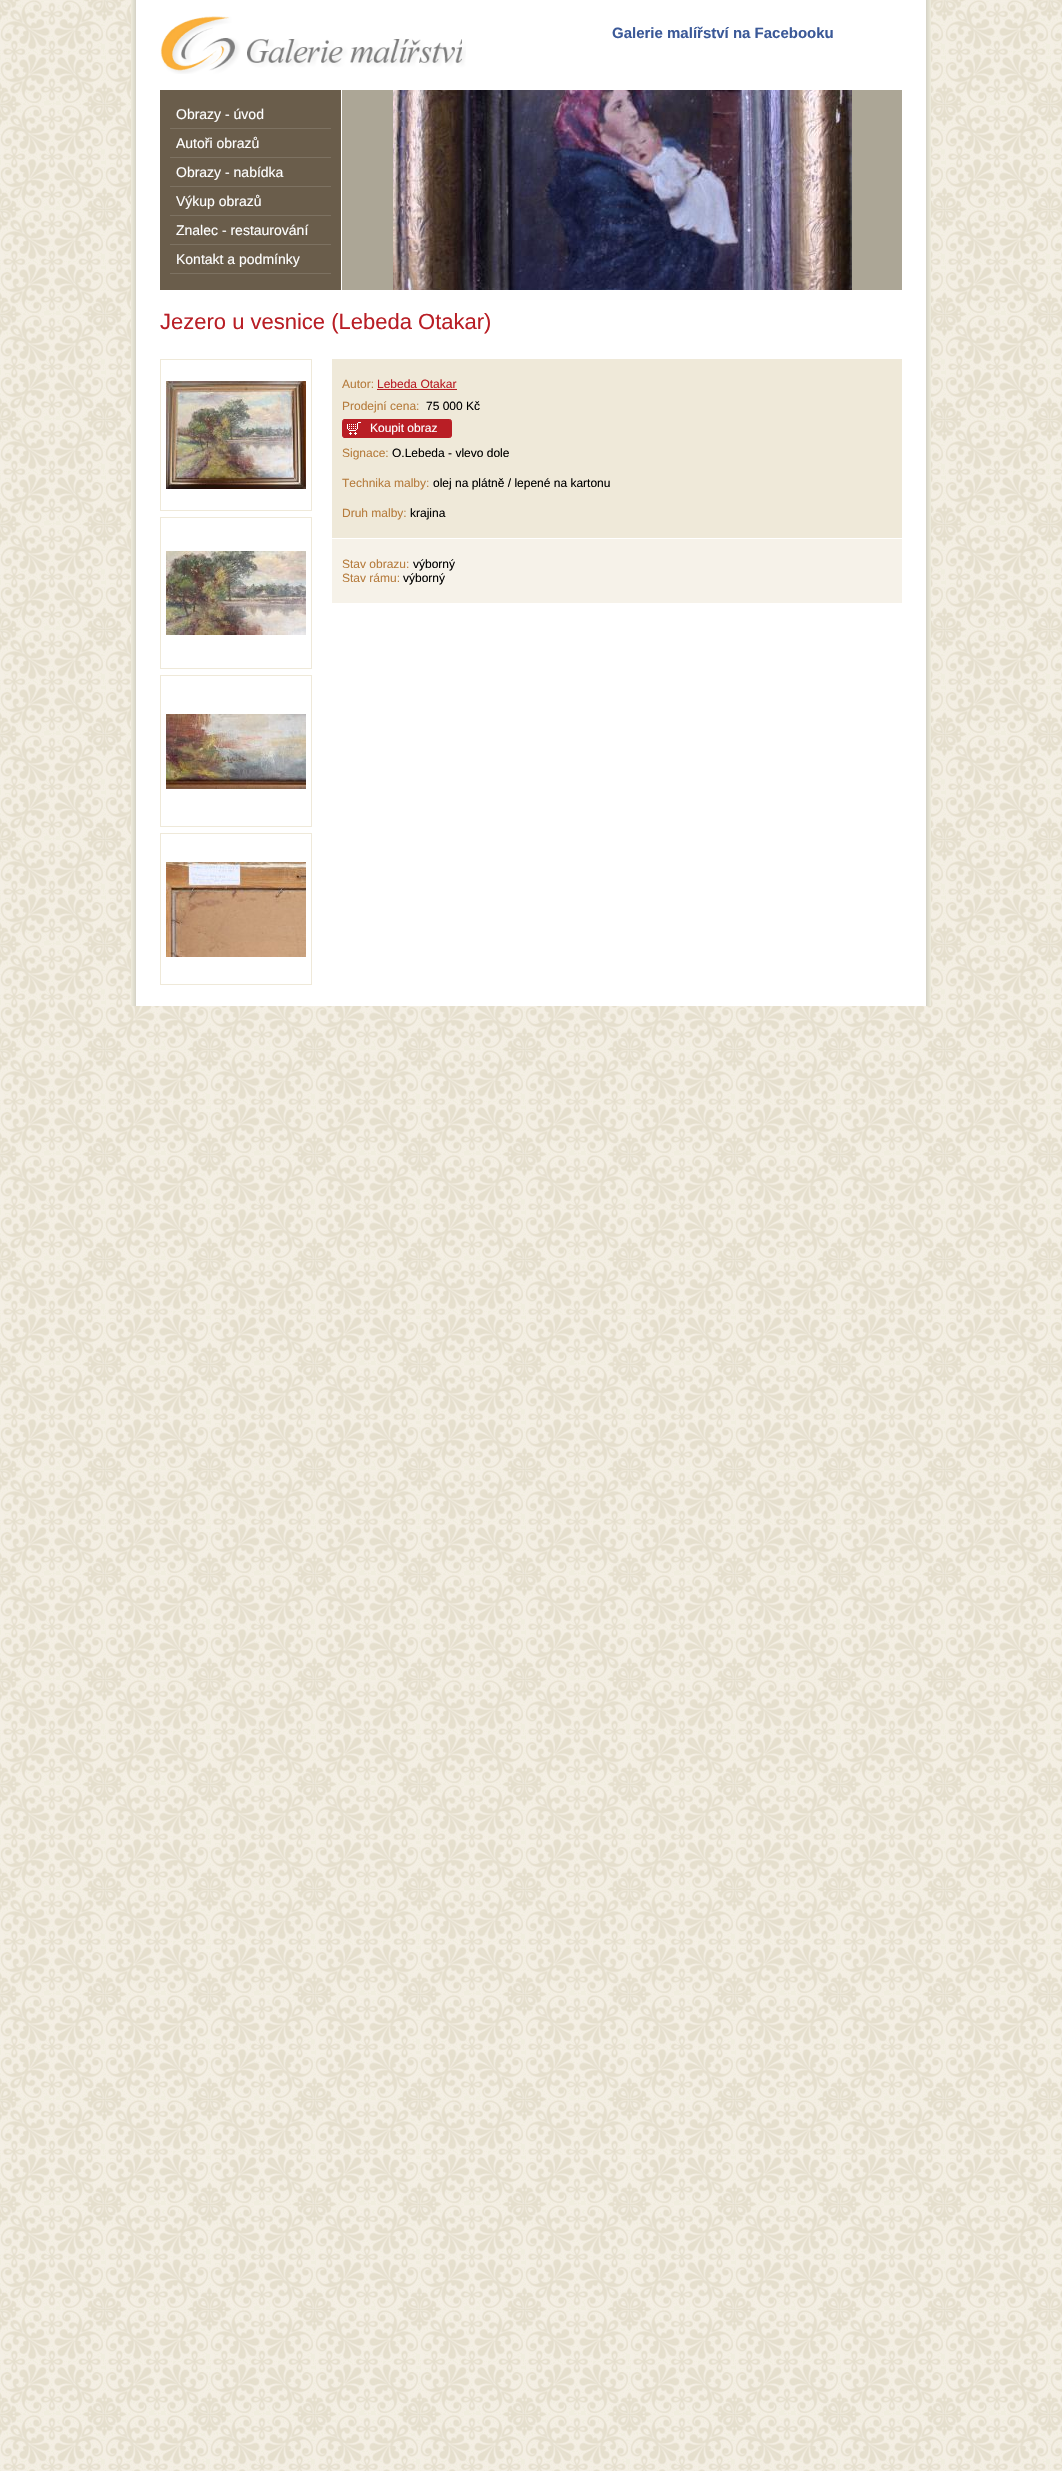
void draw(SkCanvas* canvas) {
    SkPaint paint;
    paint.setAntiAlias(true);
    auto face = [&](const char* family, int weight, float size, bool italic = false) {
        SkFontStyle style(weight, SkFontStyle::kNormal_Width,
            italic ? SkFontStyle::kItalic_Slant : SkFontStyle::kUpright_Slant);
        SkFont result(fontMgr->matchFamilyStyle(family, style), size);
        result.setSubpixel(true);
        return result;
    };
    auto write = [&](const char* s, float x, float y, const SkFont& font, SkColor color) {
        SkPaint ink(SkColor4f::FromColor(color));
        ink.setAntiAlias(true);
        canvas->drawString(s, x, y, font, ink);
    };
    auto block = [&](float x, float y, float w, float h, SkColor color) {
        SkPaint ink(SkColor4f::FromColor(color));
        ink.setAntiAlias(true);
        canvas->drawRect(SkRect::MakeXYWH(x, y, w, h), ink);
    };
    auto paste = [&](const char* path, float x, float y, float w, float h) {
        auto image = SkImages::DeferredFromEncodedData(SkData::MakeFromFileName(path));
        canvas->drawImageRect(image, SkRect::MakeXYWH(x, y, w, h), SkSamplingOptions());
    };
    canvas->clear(SkColorSetRGB(240, 237, 222));
    paste("pic1.png", 0, 0, 1062, 2471);
    block(136, 0, 790, 1006, SK_ColorWHITE);
    paste("pic2.png", 131, 0, 5, 1006);
    paste("pic3.png", 926, 0, 5, 1006);
    paste("pic4.png", 160, 16, 306, 58);
    auto kFont1 = face("Liberation Sans", 700, 15);
    write("Galerie malířství na Facebooku", 612, 38, kFont1, SkColorSetRGB(59, 89, 152));
    block(160, 90, 181, 200, SkColorSetRGB(106, 93, 75));
    block(170, 128, 161, 1, SkColorSetRGB(125, 114, 98));
    auto kFont2 = face("Liberation Sans", 400, 14);
    write("Obrazy - úvod", 176, 119, kFont2, SK_ColorWHITE);
    block(170, 157, 161, 1, SkColorSetRGB(125, 114, 98));
    write("Autoři obrazů", 176, 148, kFont2, SK_ColorWHITE);
    block(170, 186, 161, 1, SkColorSetRGB(125, 114, 98));
    write("Obrazy - nabídka", 176, 177, kFont2, SK_ColorWHITE);
    block(170, 215, 161, 1, SkColorSetRGB(125, 114, 98));
    write("Výkup obrazů", 176, 206, kFont2, SK_ColorWHITE);
    block(170, 244, 161, 1, SkColorSetRGB(125, 114, 98));
    write("Znalec - restaurování", 176, 235, kFont2, SK_ColorWHITE);
    block(170, 273, 161, 1, SkColorSetRGB(125, 114, 98));
    write("Kontakt a podmínky", 176, 264, kFont2, SK_ColorWHITE);
    block(342, 90, 560, 200, SkColorSetRGB(172, 166, 150));
    paste("pic5.png", 393, 90, 459, 200);
    auto kFont3 = face("Liberation Sans", 400, 22);
    write("Jezero u vesnice (Lebeda Otakar)", 160, 329, kFont3, SkColorSetRGB(185, 30, 37));
    paste("pic6.png", 166, 381, 140, 108);
    paint.setStyle(SkPaint::kStroke_Style);
    paint.setStrokeWidth(1);
    paint.setColor(SkColorSetRGB(239, 233, 217));
    canvas->drawRect(SkRect::MakeXYWH(160.5f, 359.5f, 151, 151), paint);
    paste("pic7.png", 166, 551, 140, 84);
    canvas->drawRect(SkRect::MakeXYWH(160.5f, 517.5f, 151, 151), paint);
    paste("pic8.png", 166, 714, 140, 75);
    canvas->drawRect(SkRect::MakeXYWH(160.5f, 675.5f, 151, 151), paint);
    paste("pic9.png", 166, 862, 140, 95);
    canvas->drawRect(SkRect::MakeXYWH(160.5f, 833.5f, 151, 151), paint);
    block(332, 359, 570, 179, SkColorSetRGB(239, 233, 217));
    auto kFont4 = face("Liberation Sans", 400, 12);
    write("Autor:", 342, 388, kFont4, SkColorSetRGB(182, 124, 61));
    write("Lebeda Otakar", 377, 388, kFont4, SkColorSetRGB(185, 30, 37));
    block(377, 389, 80, 1, SkColorSetRGB(185, 30, 37));
    write("Prodejní cena:", 342, 410, kFont4, SkColorSetRGB(182, 124, 61));
    write("75 000 Kč", 426, 410, kFont4, SK_ColorBLACK);
    paste("pic10.png", 342, 419, 110, 19);
    write("Koupit obraz", 370, 432, kFont4, SK_ColorWHITE);
    write("Signace:", 342, 457, kFont4, SkColorSetRGB(182, 124, 61));
    write("O.Lebeda - vlevo dole", 392, 457, kFont4, SK_ColorBLACK);
    write("Technika malby:", 342, 487, kFont4, SkColorSetRGB(182, 124, 61));
    write("olej na plátně / lepené na kartonu", 433, 487, kFont4, SK_ColorBLACK);
    write("Druh malby:", 342, 517, kFont4, SkColorSetRGB(182, 124, 61));
    write("krajina", 410, 517, kFont4, SK_ColorBLACK);
    block(332, 539, 570, 64, SkColorSetRGB(246, 242, 233));
    write("Stav obrazu:", 342, 568, kFont4, SkColorSetRGB(182, 124, 61));
    write("výborný", 413, 568, kFont4, SK_ColorBLACK);
    write("Stav rámu:", 342, 582, kFont4, SkColorSetRGB(182, 124, 61));
    write("výborný", 403, 582, kFont4, SK_ColorBLACK);
}
